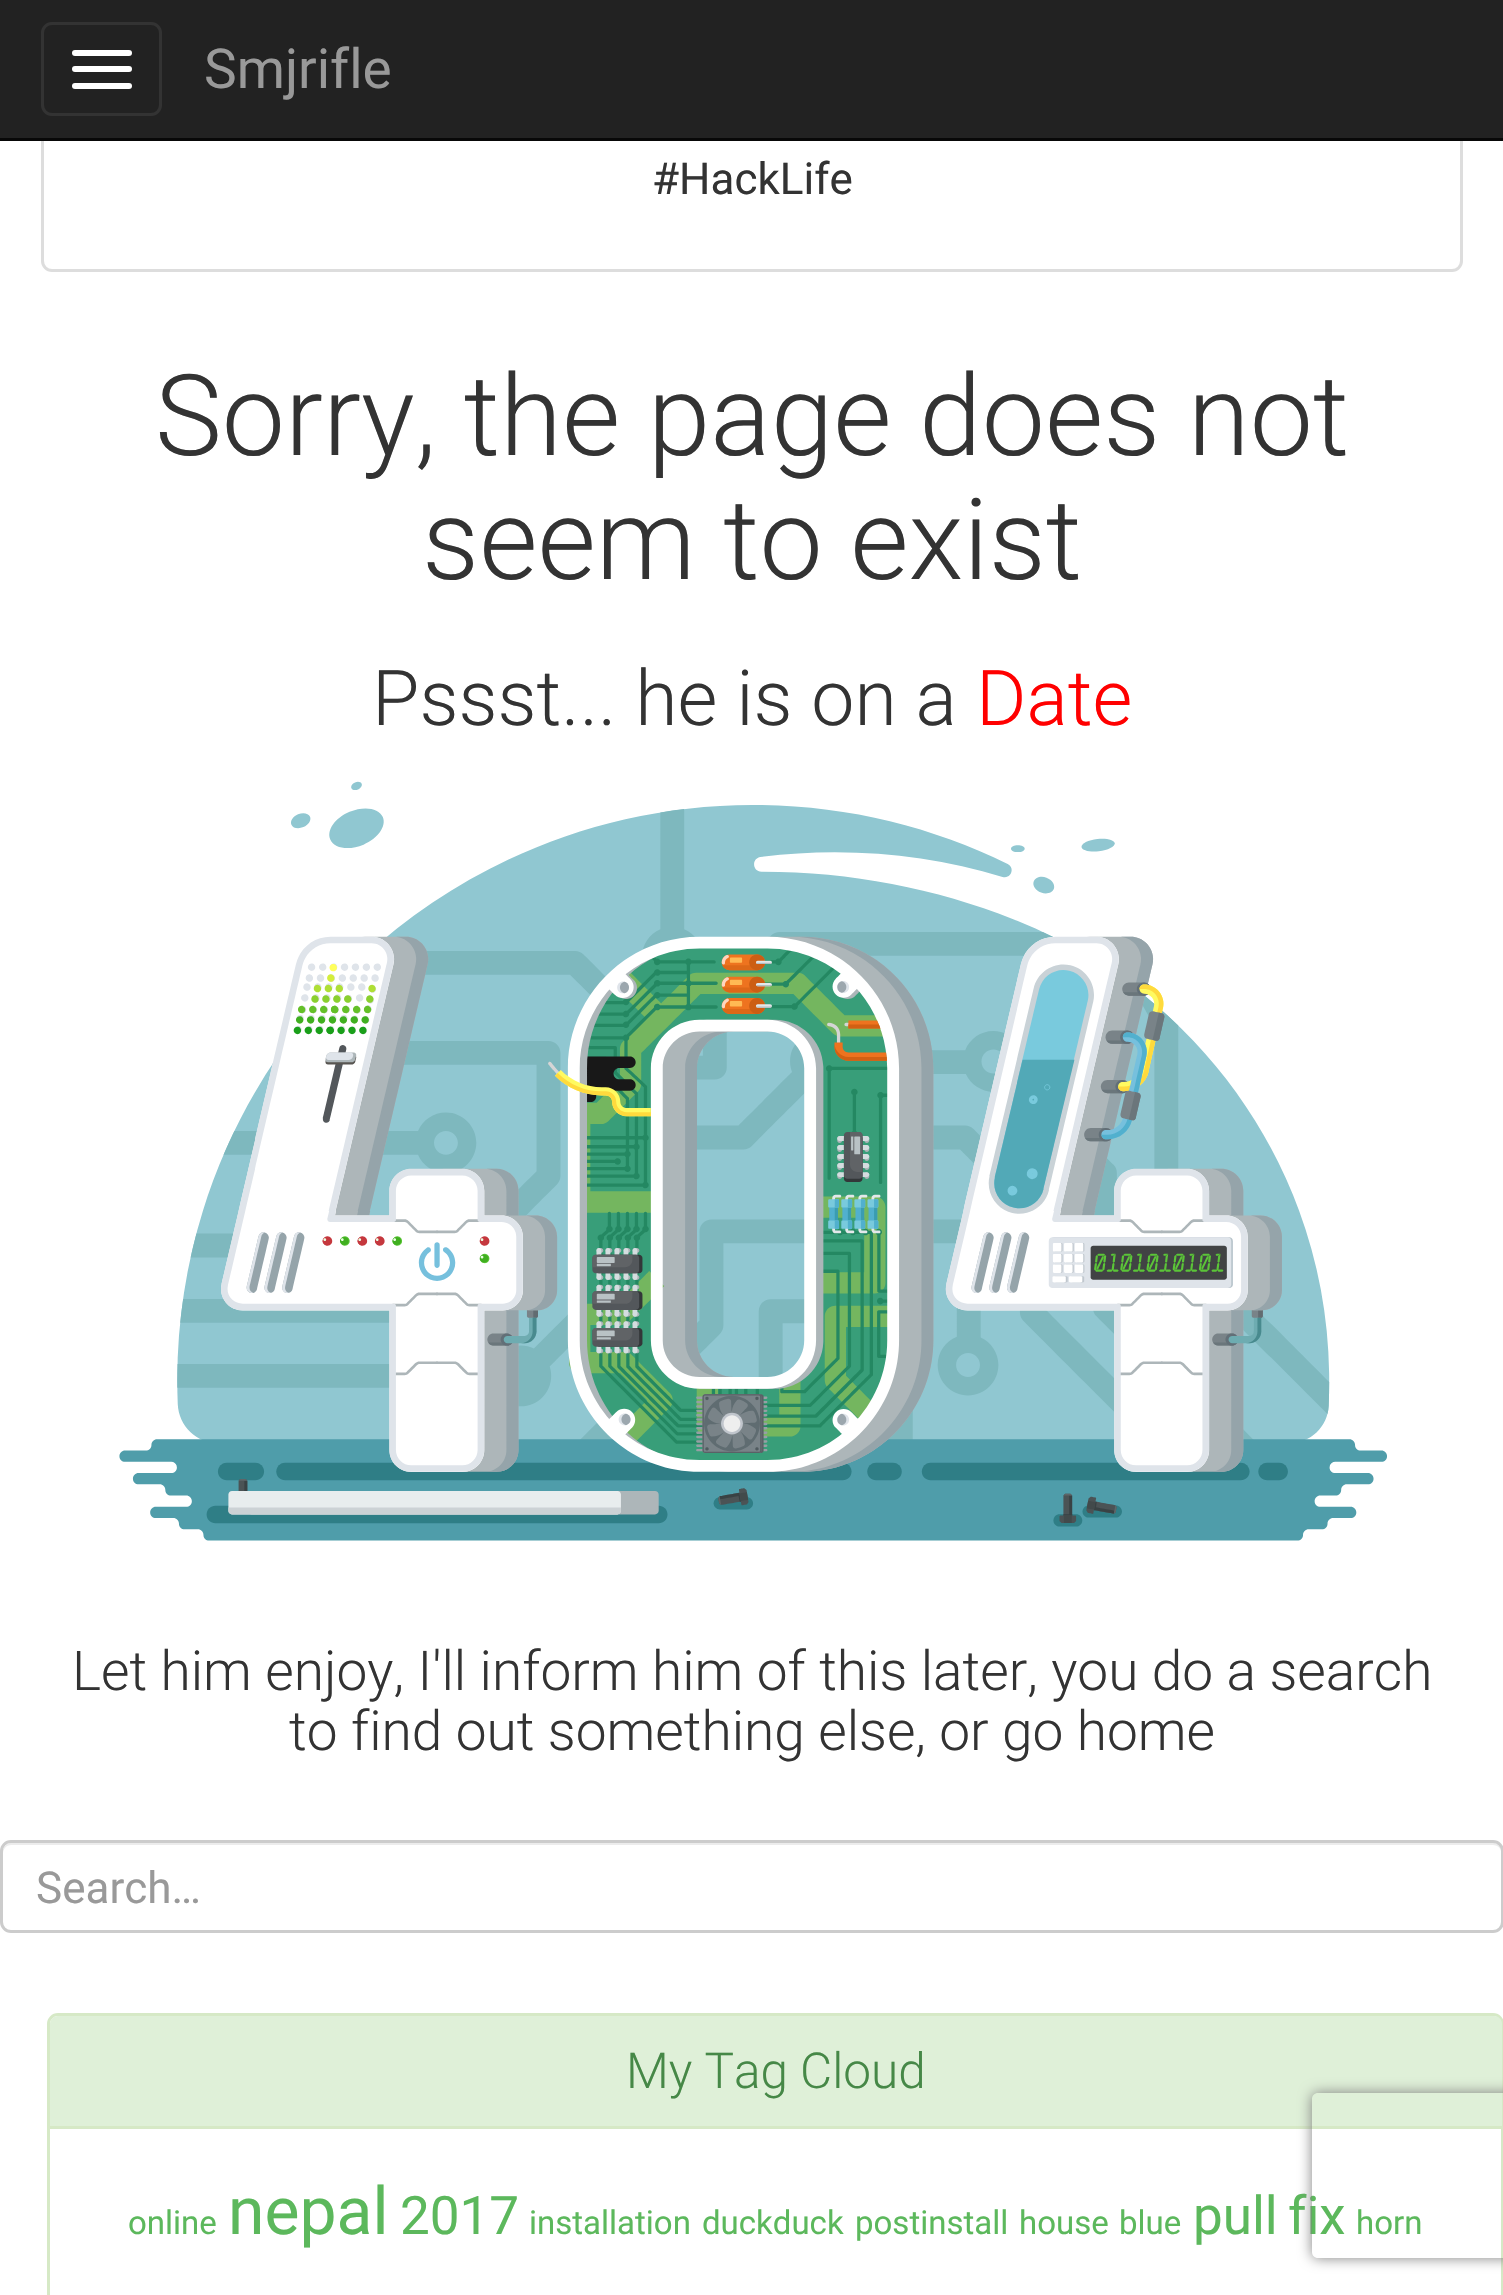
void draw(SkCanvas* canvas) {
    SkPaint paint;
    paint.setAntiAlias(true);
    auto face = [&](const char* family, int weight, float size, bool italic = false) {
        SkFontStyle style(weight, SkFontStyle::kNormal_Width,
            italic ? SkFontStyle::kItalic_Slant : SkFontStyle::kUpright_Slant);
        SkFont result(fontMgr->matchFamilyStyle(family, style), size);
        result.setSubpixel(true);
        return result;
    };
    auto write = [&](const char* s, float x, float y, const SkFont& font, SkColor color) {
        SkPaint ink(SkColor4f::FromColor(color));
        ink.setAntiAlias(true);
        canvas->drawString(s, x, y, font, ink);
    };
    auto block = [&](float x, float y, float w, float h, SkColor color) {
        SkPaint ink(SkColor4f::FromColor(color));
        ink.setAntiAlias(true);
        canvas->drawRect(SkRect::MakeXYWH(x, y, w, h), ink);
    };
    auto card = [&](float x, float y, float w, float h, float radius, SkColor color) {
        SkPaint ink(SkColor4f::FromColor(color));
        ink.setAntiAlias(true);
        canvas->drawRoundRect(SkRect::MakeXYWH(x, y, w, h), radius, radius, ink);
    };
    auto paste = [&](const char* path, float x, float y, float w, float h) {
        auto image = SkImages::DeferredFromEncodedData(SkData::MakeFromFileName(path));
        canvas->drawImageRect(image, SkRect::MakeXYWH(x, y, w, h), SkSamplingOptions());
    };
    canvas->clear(SK_ColorWHITE);
    paint.setStyle(SkPaint::kStroke_Style);
    paint.setStrokeWidth(3);
    paint.setColor(SkColorSetRGB(221, 221, 221));
    canvas->drawRoundRect(SkRect::MakeXYWH(42.5f, -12.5f, 1419, 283), 9.5f, 9.5f, paint);
    block(0, 0, 1503, 138, SkColorSetRGB(34, 34, 34));
    block(0, 138, 1503, 3, SkColorSetRGB(8, 8, 8));
    paint.setColor(SkColorSetRGB(51, 51, 51));
    canvas->drawRoundRect(SkRect::MakeXYWH(42.5f, 23.5f, 118, 91), 9.5f, 9.5f, paint);
    card(72, 50, 60, 6, 3, SK_ColorWHITE);
    card(72, 66, 60, 6, 3, SK_ColorWHITE);
    card(72, 83, 60, 6, 3, SK_ColorWHITE);
    auto kFont1 = face("Roboto", 400, 55);
    write("Smjrifle", 204, 88, kFont1, SkColorSetRGB(153, 153, 153));
    auto kFont2 = face("Roboto", 400, 44);
    write("#HackLife", 652, 194, kFont2, SkColorSetRGB(51, 51, 51));
    auto kFont3 = face("Roboto", 300, 112.75f);
    write("Sorry, the page does not", 155, 455, kFont3, SkColorSetRGB(51, 51, 51));
    write("seem to exist", 422, 579, kFont3, SkColorSetRGB(51, 51, 51));
    auto kFont4 = face("Roboto", 300, 77);
    write("Pssst... he is on a", 372, 725, kFont4, SkColorSetRGB(51, 51, 51));
    write("Date", 976, 725, kFont4, SkColorSetRGB(255, 0, 0));
    paste("pic1.png", 119, 781, 1268, 760);
    auto kFont5 = face("Roboto", 300, 55);
    write("Let him enjoy, I'll inform him of this later, you do a search", 72, 1690, kFont5, SkColorSetRGB(51, 51, 51));
    write("to find out something else, or go home", 289, 1750, kFont5, SkColorSetRGB(51, 51, 51));
    paint.setStyle(SkPaint::kFill_Style);
    paint.setColor(SkColorSetRGB(236, 236, 236));
    canvas->drawPath(SkPathBuilder().moveTo(11, 1845).lineTo(1493, 1845).cubicTo(1498, 1845, 1502, 1849, 1502, 1854).lineTo(1502, 1851).cubicTo(1502, 1847, 1498, 1843, 1494, 1843).lineTo(11, 1843).cubicTo(7, 1843, 3, 1847, 3, 1851).lineTo(3, 1854).cubicTo(3, 1849, 6, 1845, 11, 1845).close().detach(), paint);
    paint.setStyle(SkPaint::kStroke_Style);
    paint.setColor(SkColorSetRGB(204, 204, 204));
    canvas->drawRoundRect(SkRect::MakeXYWH(1.5f, 1841.5f, 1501, 90), 9.5f, 9.5f, paint);
    write("Search…", 36, 1903, kFont2, SkColorSetRGB(153, 153, 153));
    paint.setColor(SkColorSetRGB(214, 233, 198));
    canvas->drawRoundRect(SkRect::MakeXYWH(48.5f, 2014.5f, 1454, 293), 9.5f, 9.5f, paint);
    paint.setStyle(SkPaint::kFill_Style);
    paint.setColor(SkColorSetRGB(223, 240, 216));
    canvas->drawPath(SkPathBuilder().moveTo(58, 2016).lineTo(1494, 2016).cubicTo(1498.5f, 2016, 1502, 2019.5f, 1502, 2024).lineTo(1502, 2129).lineTo(50, 2129).lineTo(50, 2024).cubicTo(50, 2019.5f, 53.5f, 2016, 58, 2016).close().detach(), paint);
    block(50, 2126, 1452, 3, SkColorSetRGB(214, 233, 198));
    auto kFont6 = face("Roboto", 300, 49.5f);
    write("My Tag Cloud", 626, 2088, kFont6, SkColorSetRGB(70, 136, 71));
    auto kFont7 = face("Roboto", 400, 33);
    write("online", 128, 2234, kFont7, SkColorSetRGB(92, 184, 92));
    auto kFont8 = face("Roboto", 400, 66);
    write("nepal", 228, 2234, kFont8, SkColorSetRGB(92, 184, 92));
    auto kFont9 = face("Roboto", 400, 53);
    write("2017", 400, 2234, kFont9, SkColorSetRGB(92, 184, 92));
    write("installation", 529, 2234, kFont7, SkColorSetRGB(92, 184, 92));
    write("duckduck", 702, 2234, kFont7, SkColorSetRGB(92, 184, 92));
    write("postinstall", 855, 2234, kFont7, SkColorSetRGB(92, 184, 92));
    write("house", 1019, 2234, kFont7, SkColorSetRGB(92, 184, 92));
    write("blue", 1119, 2234, kFont7, SkColorSetRGB(92, 184, 92));
    write("pull", 1193, 2234, kFont9, SkColorSetRGB(92, 184, 92));
    write("fix", 1288, 2234, kFont9, SkColorSetRGB(92, 184, 92));
    write("horn", 1356, 2234, kFont7, SkColorSetRGB(92, 184, 92));
    canvas->save();
    canvas->clipPath(SkPathBuilder(SkPathFillType::kEvenOdd).moveTo(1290, 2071).lineTo(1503, 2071).lineTo(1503, 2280).lineTo(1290, 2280).close().moveTo(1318, 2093).lineTo(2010, 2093).cubicTo(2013.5f, 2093, 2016, 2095.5f, 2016, 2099).lineTo(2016, 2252).cubicTo(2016, 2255.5f, 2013.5f, 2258, 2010, 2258).lineTo(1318, 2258).cubicTo(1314.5f, 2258, 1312, 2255.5f, 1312, 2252).lineTo(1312, 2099).cubicTo(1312, 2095.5f, 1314.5f, 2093, 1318, 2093).close().detach(), true);
    paint.setColor(SkColorSetRGB(128, 128, 128));
    paint.setMaskFilter(SkMaskFilter::MakeBlur(kNormal_SkBlurStyle, 7));
    canvas->drawRoundRect(SkRect::MakeXYWH(1312, 2093, 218, 165), 6, 6, paint);
    paint.setMaskFilter(nullptr);
    canvas->restore();
}
